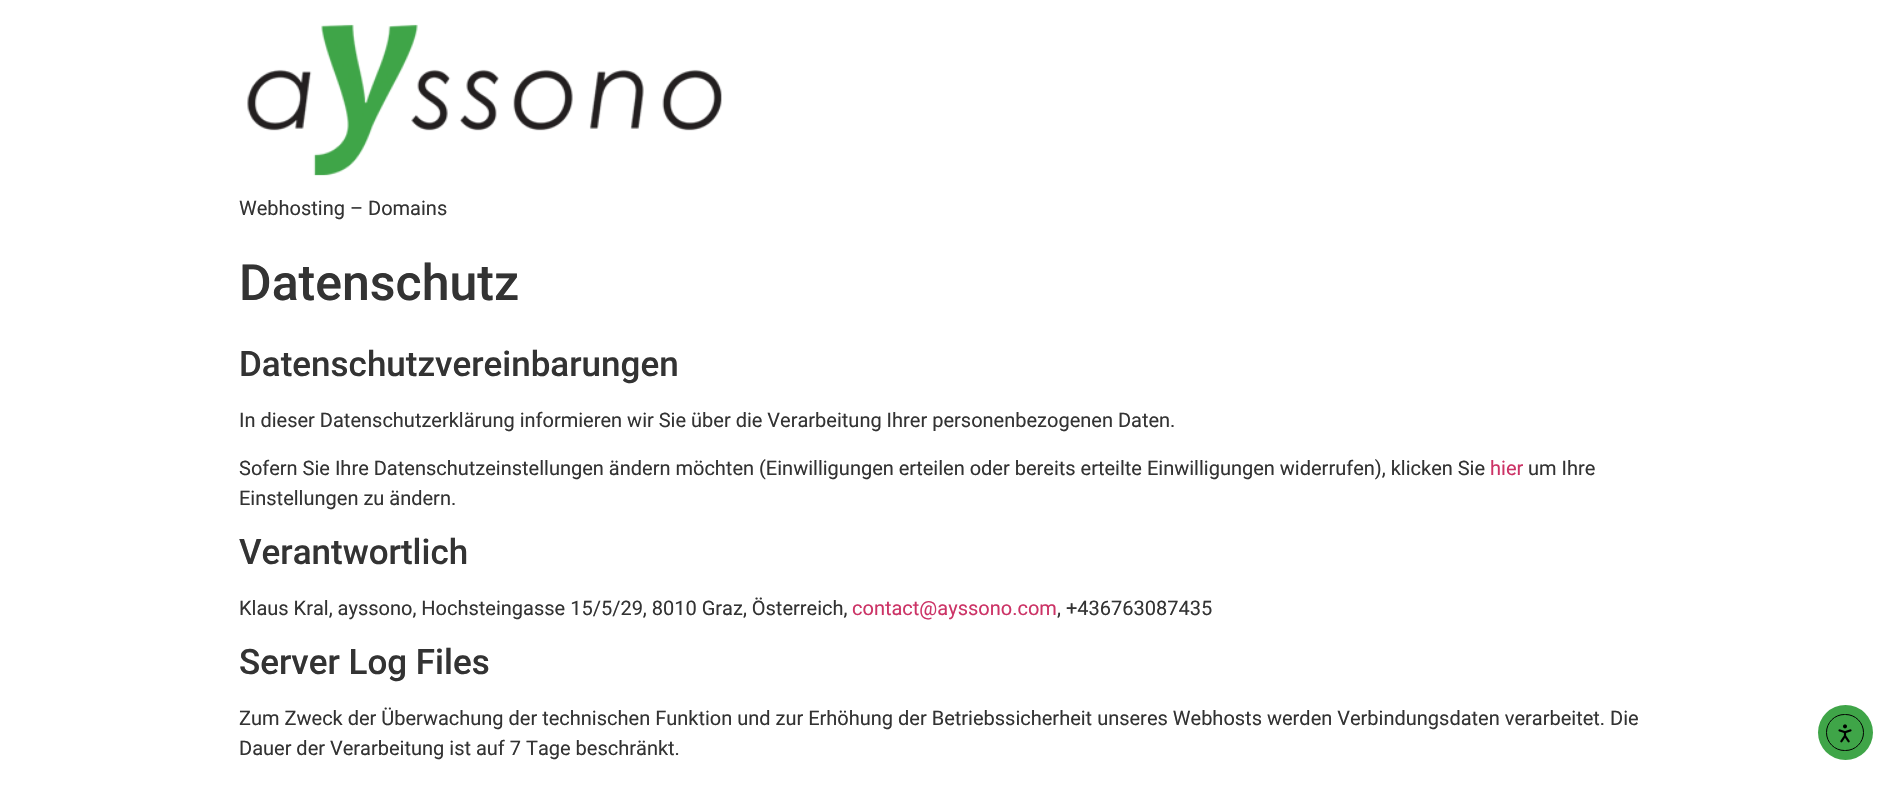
void draw(SkCanvas* canvas) {
    SkPaint paint;
    paint.setAntiAlias(true);
    auto face = [&](const char* family, int weight, float size, bool italic = false) {
        SkFontStyle style(weight, SkFontStyle::kNormal_Width,
            italic ? SkFontStyle::kItalic_Slant : SkFontStyle::kUpright_Slant);
        SkFont result(fontMgr->matchFamilyStyle(family, style), size);
        result.setSubpixel(true);
        return result;
    };
    auto write = [&](const char* s, float x, float y, const SkFont& font, SkColor color) {
        SkPaint ink(SkColor4f::FromColor(color));
        ink.setAntiAlias(true);
        canvas->drawString(s, x, y, font, ink);
    };
    auto paste = [&](const char* path, float x, float y, float w, float h) {
        auto image = SkImages::DeferredFromEncodedData(SkData::MakeFromFileName(path));
        canvas->drawImageRect(image, SkRect::MakeXYWH(x, y, w, h), SkSamplingOptions());
    };
    canvas->clear(SK_ColorWHITE);
    paste("pic1.png", 247, 24, 475, 152);
    auto kFont1 = face("Roboto", 400, 20);
    write("Webhosting – Domains", 239, 215, kFont1, SkColorSetRGB(51, 51, 51));
    auto kFont2 = face("Roboto", 500, 50);
    write("Datenschutz", 239, 300, kFont2, SkColorSetRGB(51, 51, 51));
    auto kFont3 = face("Roboto", 500, 35);
    write("Datenschutzvereinbarungen", 239, 376, kFont3, SkColorSetRGB(51, 51, 51));
    write("In dieser Datenschutzerklärung informieren wir Sie über die Verarbeitung Ihrer personenbezogenen Daten.", 239, 427, kFont1, SkColorSetRGB(51, 51, 51));
    write("Sofern Sie Ihre Datenschutzeinstellungen ändern möchten (Einwilligungen erteilen oder bereits erteilte Einwilligungen widerrufen), klicken Sie", 239, 475, kFont1, SkColorSetRGB(51, 51, 51));
    write("hier", 1490, 475, kFont1, SkColorSetRGB(204, 51, 102));
    write("um Ihre", 1528, 475, kFont1, SkColorSetRGB(51, 51, 51));
    write("Einstellungen zu ändern.", 239, 505, kFont1, SkColorSetRGB(51, 51, 51));
    write("Verantwortlich", 239, 564, kFont3, SkColorSetRGB(51, 51, 51));
    write("Klaus Kral, ayssono, Hochsteingasse 15/5/29, 8010 Graz, Österreich,", 239, 615, kFont1, SkColorSetRGB(51, 51, 51));
    write("contact@ayssono.com", 852, 615, kFont1, SkColorSetRGB(204, 51, 102));
    write(", +436763087435", 1057, 615, kFont1, SkColorSetRGB(51, 51, 51));
    write("Server Log Files", 239, 674, kFont3, SkColorSetRGB(51, 51, 51));
    write("Zum Zweck der Überwachung der technischen Funktion und zur Erhöhung der Betriebssicherheit unseres Webhosts werden Verbindungsdaten verarbeitet. Die", 239, 725, kFont1, SkColorSetRGB(51, 51, 51));
    write("Dauer der Verarbeitung ist auf 7 Tage beschränkt.", 239, 755, kFont1, SkColorSetRGB(51, 51, 51));
    paint.setColor(SkColorSetRGB(63, 165, 72));
    canvas->drawCircle(1845.5f, 732.5f, 27.5f, paint);
    paint.setStyle(SkPaint::kStroke_Style);
    paint.setStrokeWidth(1);
    paint.setColor(SK_ColorBLACK);
    canvas->drawRoundRect(SkRect::MakeXYWH(1826.5f, 714.5f, 37, 36), 18, 18, paint);
    paste("pic2.png", 1838, 724, 14, 19);
}
